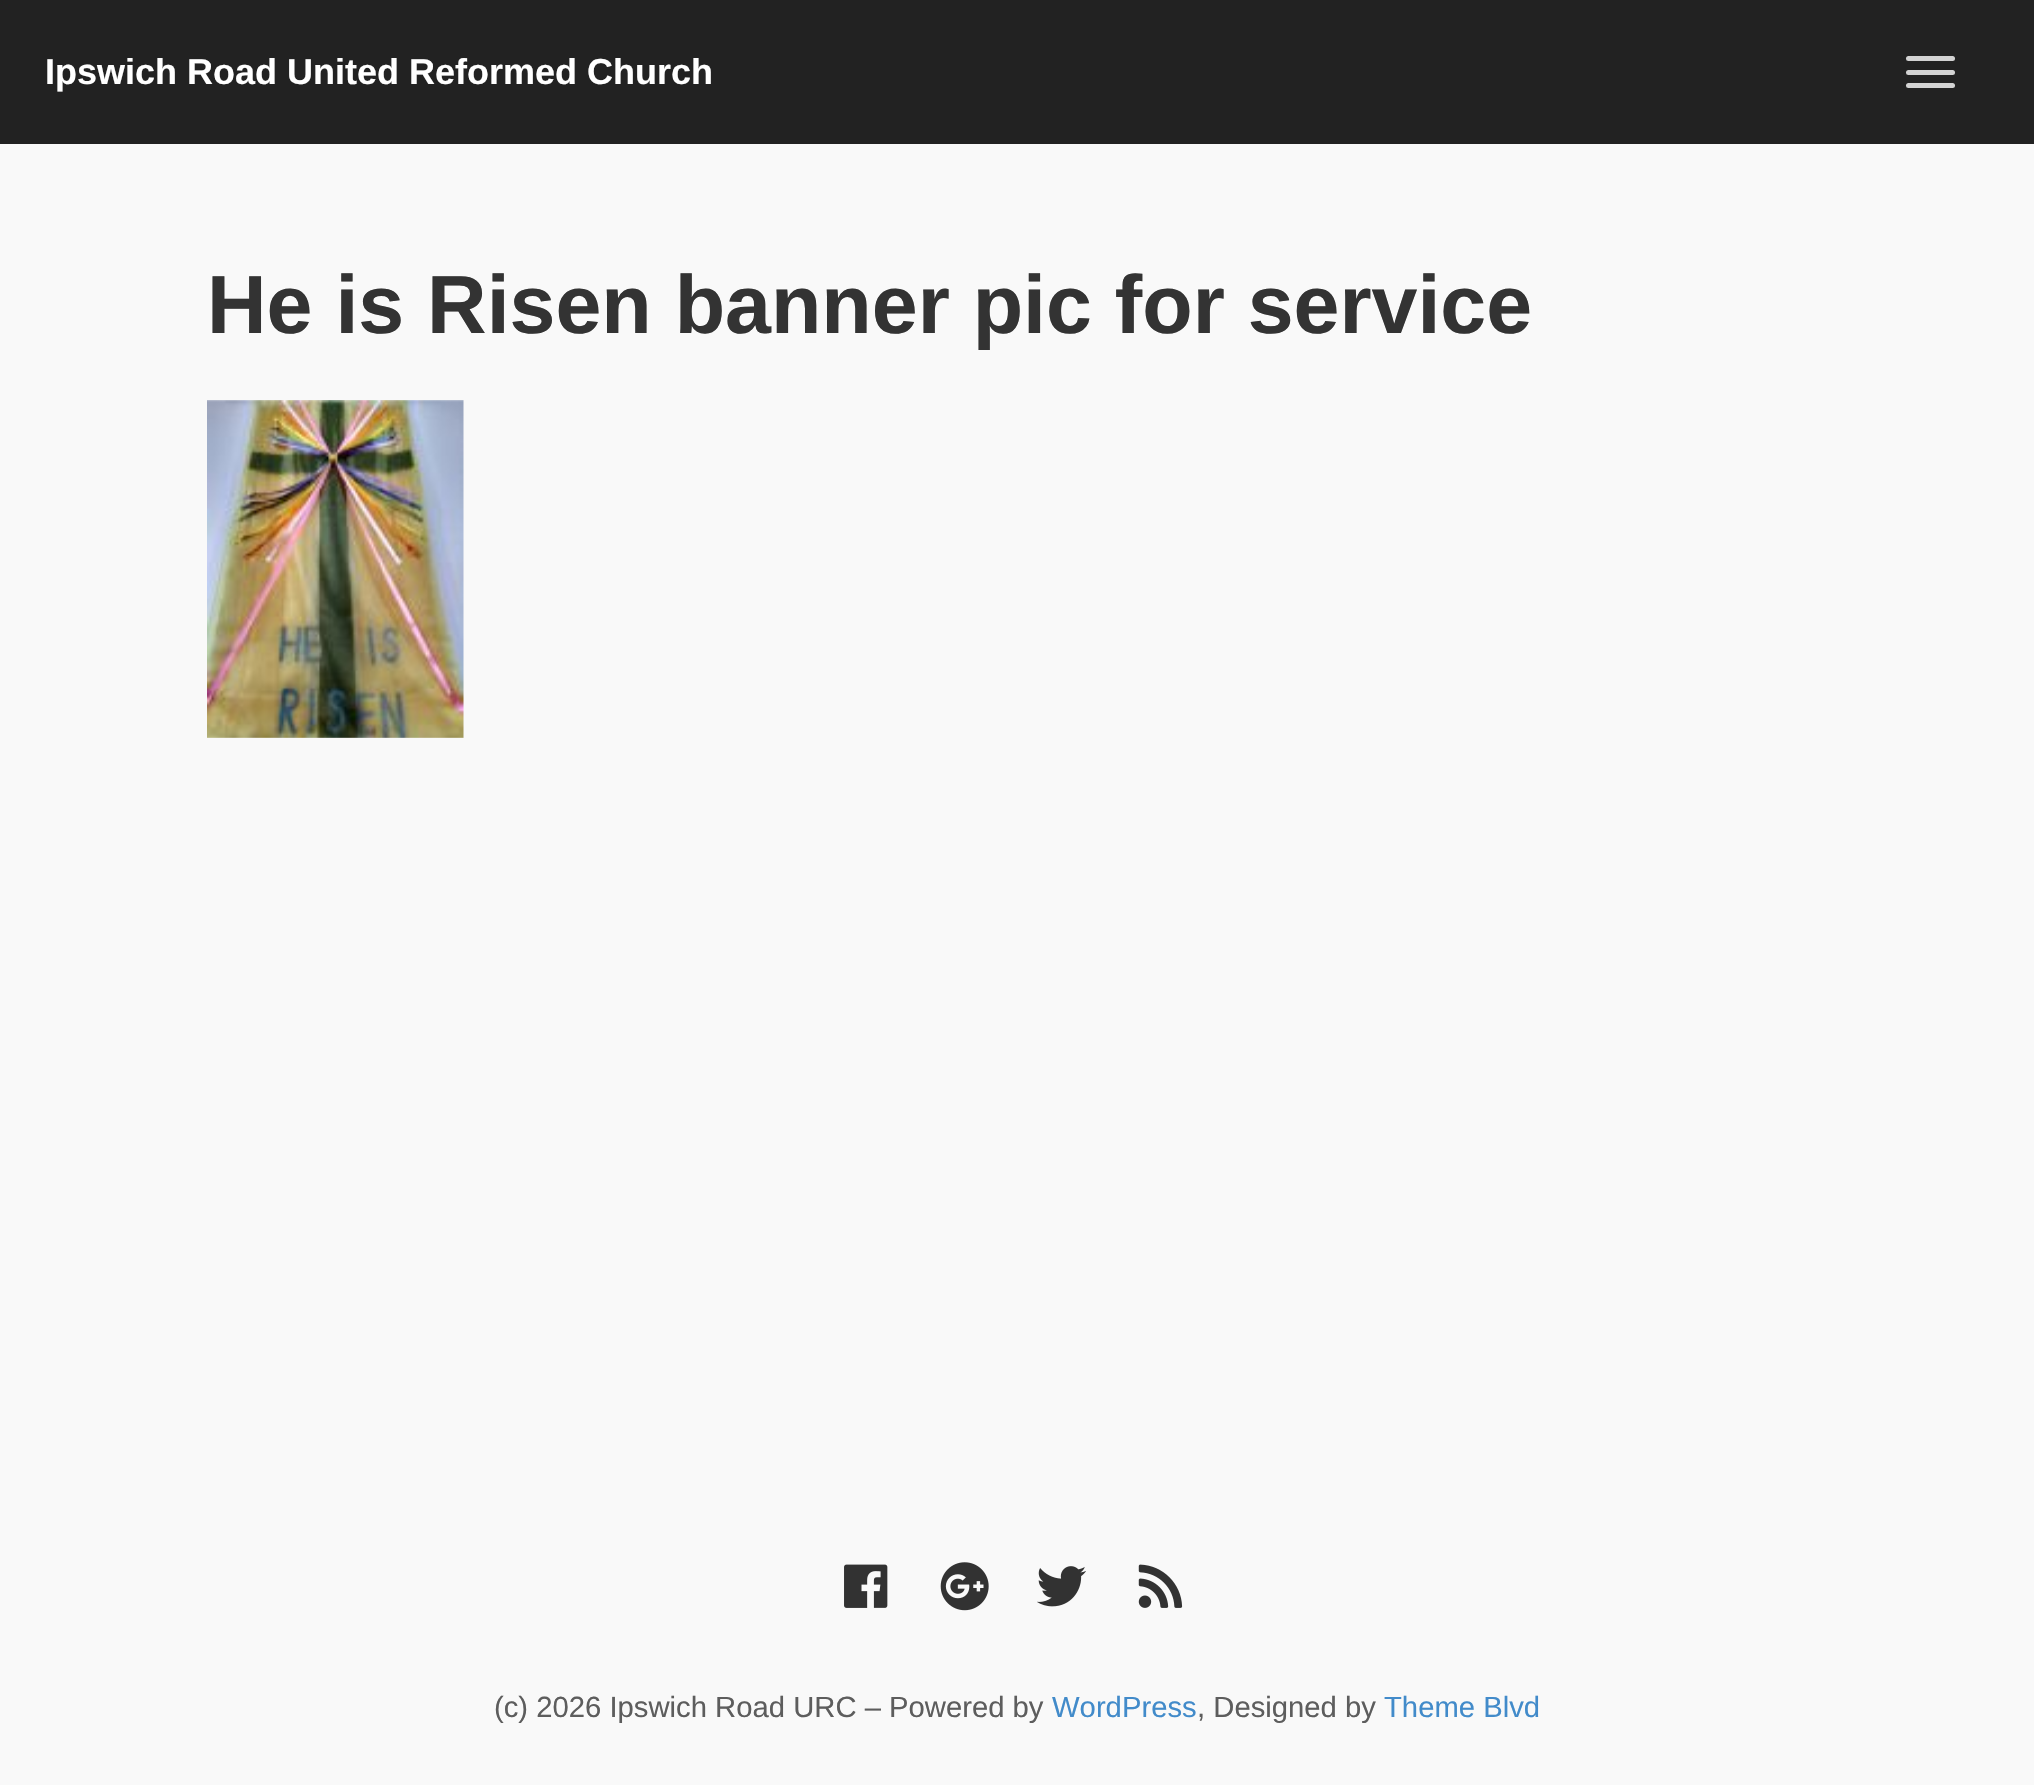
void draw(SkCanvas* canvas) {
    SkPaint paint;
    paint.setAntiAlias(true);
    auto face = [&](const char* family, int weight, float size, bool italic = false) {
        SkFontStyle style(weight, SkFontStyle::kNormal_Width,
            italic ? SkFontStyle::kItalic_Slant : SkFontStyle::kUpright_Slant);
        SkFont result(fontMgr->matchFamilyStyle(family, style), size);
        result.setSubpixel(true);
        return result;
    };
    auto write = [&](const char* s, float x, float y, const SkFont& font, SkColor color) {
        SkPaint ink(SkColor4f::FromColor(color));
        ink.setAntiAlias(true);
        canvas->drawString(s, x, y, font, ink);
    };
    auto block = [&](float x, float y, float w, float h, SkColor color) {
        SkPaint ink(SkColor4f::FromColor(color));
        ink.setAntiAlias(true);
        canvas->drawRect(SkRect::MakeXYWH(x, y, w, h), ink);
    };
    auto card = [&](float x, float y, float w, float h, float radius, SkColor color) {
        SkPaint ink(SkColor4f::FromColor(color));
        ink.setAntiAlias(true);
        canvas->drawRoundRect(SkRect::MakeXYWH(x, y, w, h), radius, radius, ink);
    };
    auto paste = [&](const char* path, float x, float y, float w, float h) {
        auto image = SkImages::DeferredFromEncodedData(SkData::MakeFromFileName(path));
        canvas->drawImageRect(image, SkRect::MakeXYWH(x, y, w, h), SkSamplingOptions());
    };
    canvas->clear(SkColorSetRGB(249, 249, 249));
    block(0, 0, 2034, 144, SkColorSetRGB(34, 34, 34));
    auto kFont1 = face("Liberation Sans", 700, 36);
    write("Ipswich Road United Reformed Church", 45, 84, kFont1, SK_ColorWHITE);
    card(1906, 56, 49, 5, 2.5f, SkColorSetRGB(211, 211, 211));
    card(1906, 70, 49, 5, 2.5f, SkColorSetRGB(211, 211, 211));
    card(1906, 83, 49, 5, 2.5f, SkColorSetRGB(211, 211, 211));
    auto kFont2 = face("Liberation Sans", 700, 82.5f);
    write("He is Risen banner pic for service", 207, 333, kFont2, SkColorSetRGB(51, 51, 51));
    paste("pic1.png", 207, 400, 257, 338);
    paste("pic2.png", 844, 1564, 44, 44);
    paste("pic3.png", 940, 1562, 49, 49);
    paste("pic4.png", 1037, 1566, 49, 41);
    paste("pic5.png", 1138, 1564, 45, 44);
    auto kFont3 = face("Liberation Sans", 400, 29.25f);
    write("(c) 2026 Ipswich Road URC – Powered by", 494, 1717, kFont3, SkColorSetRGB(93, 93, 93));
    write("WordPress", 1052, 1717, kFont3, SkColorSetRGB(66, 139, 202));
    write(", Designed by", 1197, 1717, kFont3, SkColorSetRGB(93, 93, 93));
    write("Theme Blvd", 1384, 1717, kFont3, SkColorSetRGB(66, 139, 202));
}
